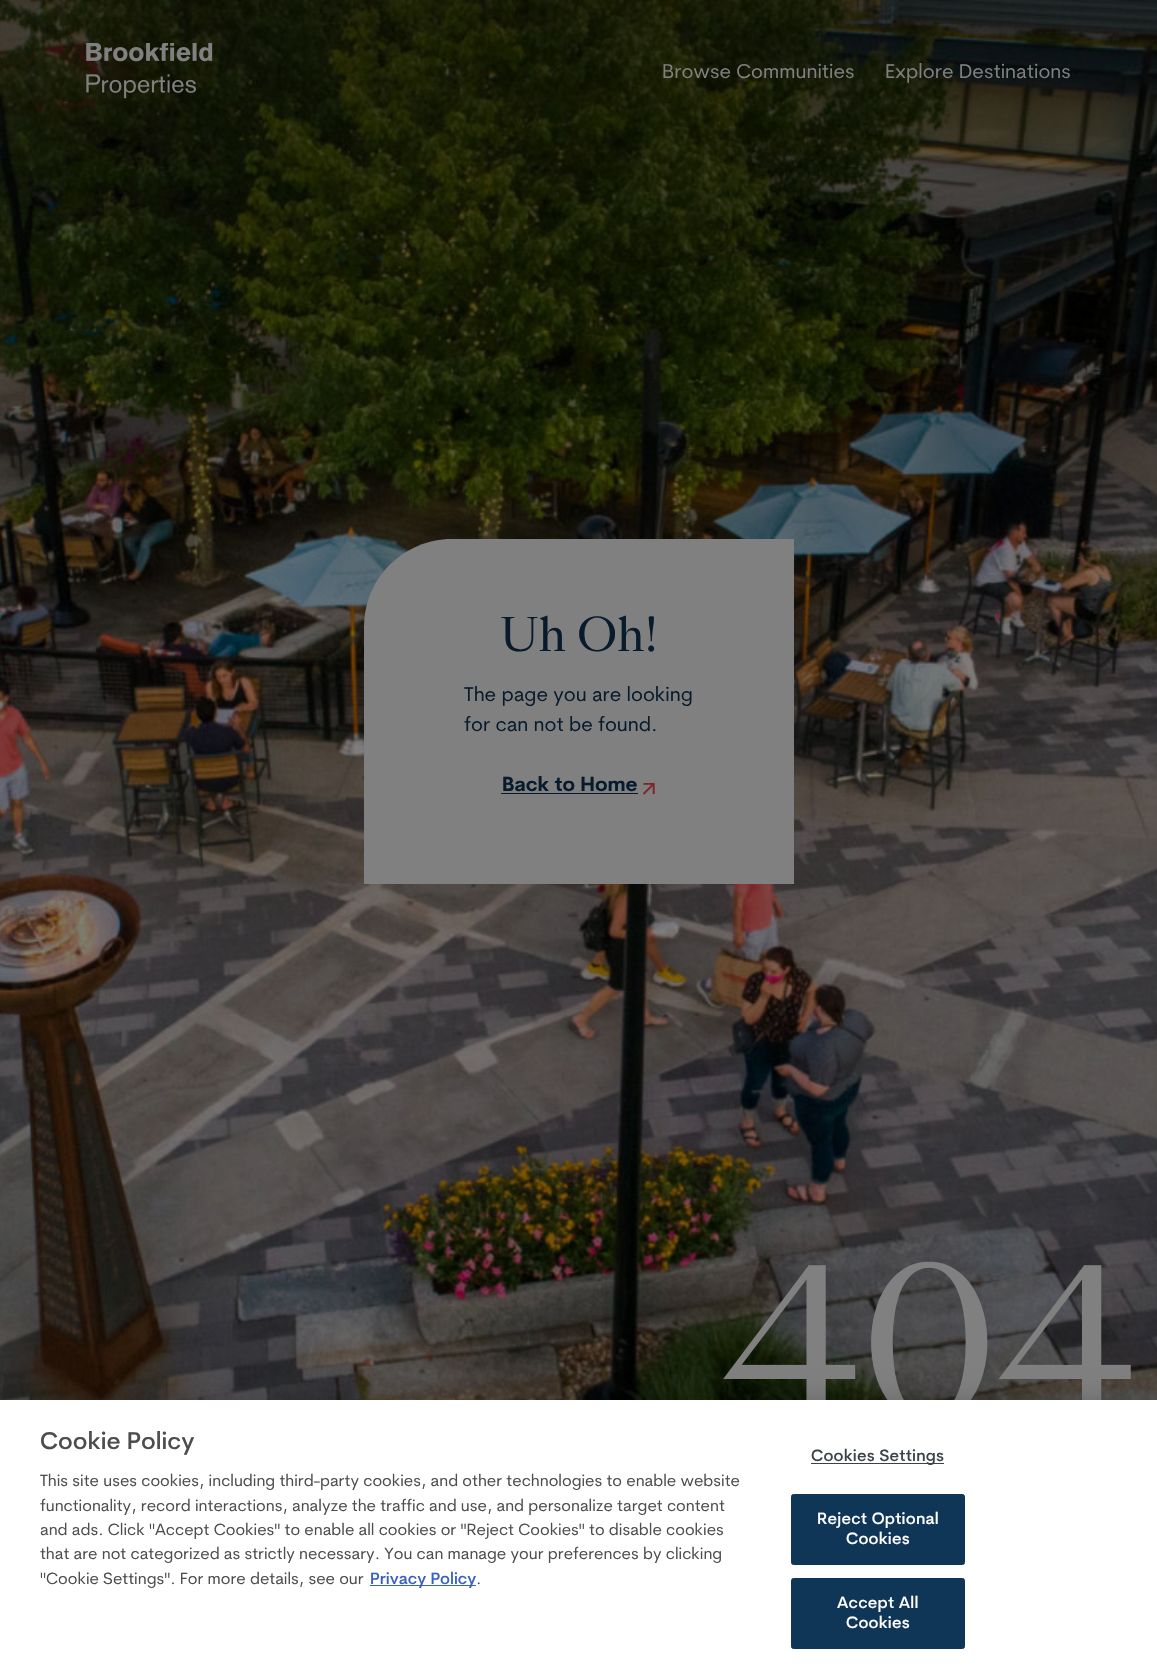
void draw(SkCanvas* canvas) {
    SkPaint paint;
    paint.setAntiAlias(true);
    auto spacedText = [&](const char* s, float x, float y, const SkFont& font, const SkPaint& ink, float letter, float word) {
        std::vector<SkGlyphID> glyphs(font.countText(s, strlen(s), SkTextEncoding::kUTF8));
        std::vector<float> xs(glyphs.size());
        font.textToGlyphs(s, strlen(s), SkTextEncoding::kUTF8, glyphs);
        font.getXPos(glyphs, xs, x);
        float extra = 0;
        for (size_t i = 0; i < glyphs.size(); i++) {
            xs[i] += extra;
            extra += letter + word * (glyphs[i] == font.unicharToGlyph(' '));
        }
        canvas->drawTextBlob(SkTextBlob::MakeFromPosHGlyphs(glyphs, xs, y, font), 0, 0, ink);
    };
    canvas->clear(0xFFFFFFFF);
    canvas->drawImageRect(SkImages::DeferredFromEncodedData(SkData::MakeFromFileName("img2.png")), SkRect::MakeXYWH(0, 0, 1157, 1400), SkSamplingOptions());
    canvas->drawImageRect(SkImages::DeferredFromEncodedData(SkData::MakeFromFileName("img1.png")), SkRect::MakeXYWH(86, 43, 127, 56), SkSamplingOptions());
    SkFont font1(fontMgr->matchFamilyStyle("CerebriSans", SkFontStyle::Normal()), 20);
    font1.setSubpixel(true);
    paint.setColor(0xFF808080);
    canvas->drawString("Browse Communities", 662, 78, font1, paint);
    canvas->drawString("Explore Destinations", 885, 78, font1, paint);
    canvas->drawPath(SkPathBuilder().moveTo(452, 539).lineTo(794, 539).lineTo(794, 884).lineTo(364, 884).lineTo(364, 627).cubicTo(364, 578.5f, 403.5f, 539, 452, 539).close().detach(), paint);
    SkFont font2(fontMgr->matchFamilyStyle("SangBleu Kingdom", SkFontStyle::Normal()), 45);
    font2.setSubpixel(true);
    paint.setColor(0xFF081B2C);
    canvas->drawString("Uh Oh!", 500, 651, font2, paint);
    canvas->drawString("The page you are looking", 464, 701, font1, paint);
    canvas->drawString("for can not be found.", 464, 731, font1, paint);
    SkFont font3(fontMgr->matchFamilyStyle("CerebriSans", SkFontStyle::Bold()), 20);
    font3.setSubpixel(true);
    canvas->drawString("Back to Home", 502, 791, font3, paint);
    canvas->drawRect(SkRect::MakeXYWH(501, 793, 137, 1), paint);
    canvas->drawImageRect(SkImages::DeferredFromEncodedData(SkData::MakeFromFileName("img3.png")), SkRect::MakeXYWH(643, 783, 12, 12), SkSamplingOptions());
    canvas->drawImageRect(SkImages::DeferredFromEncodedData(SkData::MakeFromFileName("img4.png")), SkRect::MakeXYWH(723, 1261, 408, 139), SkSamplingOptions());
    paint.setColor(0x33000000);
    paint.setMaskFilter(SkMaskFilter::MakeBlur(kNormal_SkBlurStyle, 11));
    canvas->drawRect(SkRect::MakeXYWH(0, 1400, 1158, 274), paint);
    paint.setMaskFilter(nullptr);
    paint.setColor(0xFFFFFFFF);
    canvas->drawRect(SkRect::MakeXYWH(0, 1400, 1157, 273), paint);
    SkFont font4(fontMgr->matchFamilyStyle("Cerebri Sans", SkFontStyle(500, SkFontStyle::kNormal_Width, SkFontStyle::kUpright_Slant)), 24);
    font4.setSubpixel(true);
    paint.setColor(0xFF4D4D4D);
    canvas->drawString("Cookie Policy", 40, 1449, font4, paint);
    SkFont font5(fontMgr->matchFamilyStyle("CerebriSans", SkFontStyle::Normal()), 16.25f);
    font5.setSubpixel(true);
    canvas->drawString("This site uses cookies, including third-party cookies, and other technologies to enable website", 40, 1486, font5, paint);
    canvas->drawString("functionality, record interactions, analyze the traffic and use, and personalize target content", 40, 1511, font5, paint);
    canvas->drawString("and ads. Click \"Accept Cookies\" to enable all cookies or \"Reject Cookies\" to disable cookies", 40, 1535, font5, paint);
    canvas->drawString("that are not categorized as strictly necessary. You can manage your preferences by clicking", 40, 1559, font5, paint);
    canvas->drawString("\"Cookie Settings\". For more details, see our", 40, 1584, font5, paint);
    paint.setColor(0xFF3860BE);
    canvas->drawRect(SkRect::MakeXYWH(370, 1585, 106, 1), paint);
    SkFont font6(fontMgr->matchFamilyStyle("Cerebri Sans", SkFontStyle(500, SkFontStyle::kNormal_Width, SkFontStyle::kUpright_Slant)), 16.25f);
    font6.setSubpixel(true);
    canvas->drawString("Privacy Policy", 370, 1584, font6, paint);
    paint.setColor(0xFF4D4D4D);
    canvas->drawString(".", 476, 1584, font5, paint);
    paint.setColor(0xFF3C4347);
    canvas->drawRect(SkRect::MakeXYWH(811, 1463, 133, 1), paint);
    spacedText("Cookies Settings", 811, 1461, font6, paint, 0.2f, 0);
    paint.setColor(0xFF0F3557);
    canvas->drawRoundRect(SkRect::MakeXYWH(791.5f, 1494.5f, 173, 70), 2, 2, paint);
    paint.setStyle(SkPaint::kStroke_Style);
    paint.setStrokeWidth(1);
    canvas->drawRoundRect(SkRect::MakeXYWH(791.5f, 1494.5f, 173, 70), 2, 2, paint);
    paint.setStyle(SkPaint::kFill_Style);
    paint.setColor(0xFFFFFFFF);
    spacedText("Reject Optional", 817, 1524, font6, paint, 0.2f, 0);
    spacedText("Cookies", 846, 1544, font6, paint, 0.2f, 0);
    paint.setColor(0xFF0F3557);
    canvas->drawRoundRect(SkRect::MakeXYWH(791.5f, 1578.5f, 173, 70), 2, 2, paint);
    paint.setStyle(SkPaint::kStroke_Style);
    canvas->drawRoundRect(SkRect::MakeXYWH(791.5f, 1578.5f, 173, 70), 2, 2, paint);
    paint.setStyle(SkPaint::kFill_Style);
    paint.setColor(0xFFFFFFFF);
    spacedText("Accept All", 837, 1608, font6, paint, 0.2f, 0);
    spacedText("Cookies", 846, 1628, font6, paint, 0.2f, 0);
}
